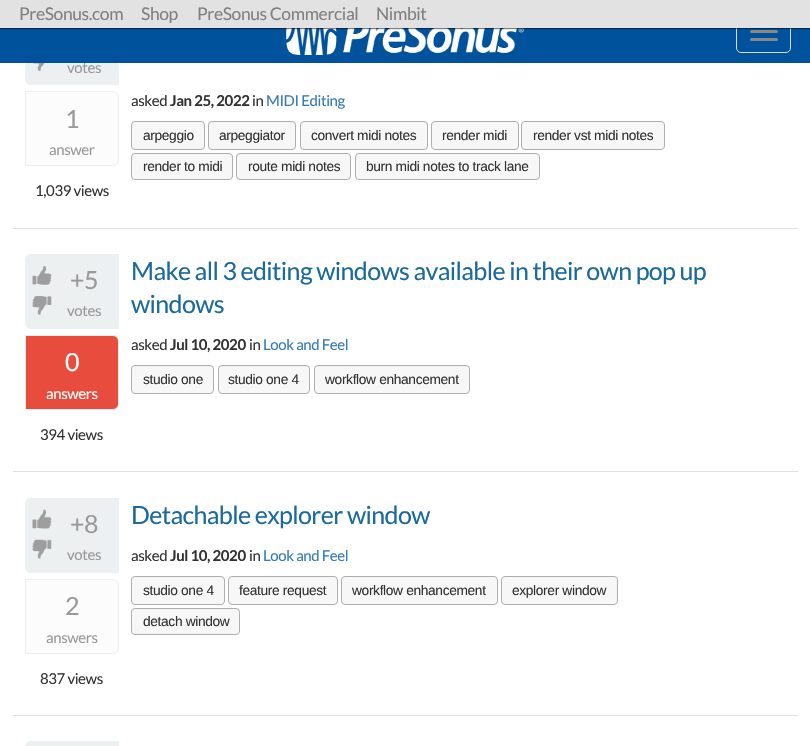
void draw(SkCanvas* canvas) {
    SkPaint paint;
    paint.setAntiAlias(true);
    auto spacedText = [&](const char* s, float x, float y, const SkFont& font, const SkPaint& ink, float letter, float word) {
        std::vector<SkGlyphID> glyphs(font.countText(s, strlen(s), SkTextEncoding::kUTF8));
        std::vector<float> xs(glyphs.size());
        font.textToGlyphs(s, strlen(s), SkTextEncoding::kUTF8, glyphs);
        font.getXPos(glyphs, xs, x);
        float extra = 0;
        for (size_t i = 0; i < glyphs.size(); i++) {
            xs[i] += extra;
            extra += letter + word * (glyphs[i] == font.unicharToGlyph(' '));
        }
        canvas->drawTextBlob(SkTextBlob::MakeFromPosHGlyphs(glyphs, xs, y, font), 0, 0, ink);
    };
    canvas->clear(0xFFFFFFFF);
    paint.setColor(0xFFECF0F1);
    canvas->drawPath(SkPathBuilder().moveTo(31, 10).lineTo(119, 10).lineTo(119, 85).lineTo(31, 85).cubicTo(27.5f, 85, 25, 82.5f, 25, 79).lineTo(25, 16).cubicTo(25, 12.5f, 27.5f, 10, 31, 10).close().detach(), paint);
    SkFont font1(fontMgr->matchFamilyStyle("Lato", SkFontStyle::Normal()), 15);
    font1.setSubpixel(true);
    paint.setColor(0xFF999999);
    spacedText("votes", 67, 73, font1, paint, -0.4f, 0);
    paint.setColor(0xFF00529C);
    canvas->drawRect(SkRect::MakeXYWH(0, 28, 810, 35), paint);
    canvas->drawImageRect(SkImages::DeferredFromEncodedData(SkData::MakeFromFileName("img1.png")), SkRect::MakeXYWH(286, 28, 238, 27), SkSamplingOptions());
    paint.setStyle(SkPaint::kStroke_Style);
    paint.setStrokeWidth(1);
    paint.setColor(0xFFDDDDDD);
    canvas->drawRoundRect(SkRect::MakeXYWH(736.5f, 10.5f, 54, 42), 4.5f, 4.5f, paint);
    paint.setStyle(SkPaint::kFill_Style);
    paint.setColor(0xFF888888);
    canvas->drawRoundRect(SkRect::MakeXYWH(750, 30, 28, 3), 1.5f, 1.5f, paint);
    paint.setColor(0x80000000);
    paint.setMaskFilter(SkMaskFilter::MakeBlur(kNormal_SkBlurStyle, 0.5f));
    canvas->drawRect(SkRect::MakeXYWH(-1, -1, 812, 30), paint);
    paint.setMaskFilter(nullptr);
    paint.setColor(0xFFE2E2E2);
    canvas->drawRect(SkRect::MakeXYWH(0, 0, 810, 28), paint);
    SkFont font2(fontMgr->matchFamilyStyle("Lato", SkFontStyle::Normal()), 17.5f);
    font2.setSubpixel(true);
    paint.setColor(0xFF808080);
    spacedText("PreSonus.com", 19, 20, font2, paint, -0.4f, 0);
    spacedText("Shop", 141, 20, font2, paint, -0.4f, 0);
    spacedText("PreSonus Commercial", 197, 20, font2, paint, -0.4f, 0);
    spacedText("Nimbit", 376, 20, font2, paint, -0.4f, 0);
    paint.setColor(0xFF888888);
    canvas->drawRoundRect(SkRect::MakeXYWH(750, 38, 28, 3), 1.5f, 1.5f, paint);
    paint.setColor(0xFFE0E0E0);
    canvas->drawRect(SkRect::MakeXYWH(13, 228, 785, 1), paint);
    canvas->drawImageRect(SkImages::DeferredFromEncodedData(SkData::MakeFromFileName("img2.png")), SkRect::MakeXYWH(33, 63, 12, 8), SkSamplingOptions());
    paint.setColor(0xFFFCFCFC);
    canvas->drawPath(SkPathBuilder().moveTo(25.5f, 91.5f).lineTo(113, 91.5f).cubicTo(116, 91.5f, 118.5f, 94, 118.5f, 97).lineTo(118.5f, 160).cubicTo(118.5f, 163, 116, 165.5f, 113, 165.5f).lineTo(25.5f, 165.5f).close().detach(), paint);
    paint.setStyle(SkPaint::kStroke_Style);
    paint.setColor(0xFFECF0F1);
    canvas->drawPath(SkPathBuilder().moveTo(25.5f, 91.5f).lineTo(113, 91.5f).cubicTo(116, 91.5f, 118.5f, 94, 118.5f, 97).lineTo(118.5f, 160).cubicTo(118.5f, 163, 116, 165.5f, 113, 165.5f).lineTo(25.5f, 165.5f).close().detach(), paint);
    SkFont font3(fontMgr->matchFamilyStyle("Lato", SkFontStyle::Normal()), 25);
    font3.setSubpixel(true);
    paint.setStyle(SkPaint::kFill_Style);
    paint.setColor(0xFF999999);
    spacedText("1", 65, 128, font3, paint, -0.62f, 0);
    spacedText("answer", 49, 155, font1, paint, -0.4f, 0);
    paint.setColor(0xFF333333);
    spacedText("1,039 views", 35, 196, font1, paint, -0.4f, 0);
    spacedText("asked", 131, 106, font1, paint, -0.4f, 0);
    SkFont font4(fontMgr->matchFamilyStyle("Lato", SkFontStyle::Bold()), 15);
    font4.setSubpixel(true);
    spacedText("Jan 25, 2022", 170, 106, font4, paint, -0.4f, 0);
    spacedText("in", 252, 106, font1, paint, -0.4f, 0);
    paint.setColor(0xFF337AB7);
    spacedText("MIDI Editing", 266, 106, font1, paint, -0.4f, 0);
    paint.setColor(0xFFF7F7F7);
    canvas->drawRoundRect(SkRect::MakeXYWH(131.5f, 121.5f, 73, 28), 3.5f, 3.5f, paint);
    paint.setStyle(SkPaint::kStroke_Style);
    paint.setColor(0xFFAEAEAE);
    canvas->drawRoundRect(SkRect::MakeXYWH(131.5f, 121.5f, 73, 28), 3.5f, 3.5f, paint);
    SkFont font5(fontMgr->matchFamilyStyle("Liberation Sans", SkFontStyle::Normal()), 13.75f);
    font5.setSubpixel(true);
    paint.setStyle(SkPaint::kFill_Style);
    paint.setColor(0xFF333333);
    spacedText("arpeggio", 143, 140, font5, paint, -0.35f, 0);
    paint.setColor(0xFFF7F7F7);
    canvas->drawRoundRect(SkRect::MakeXYWH(208.5f, 121.5f, 87, 28), 3.5f, 3.5f, paint);
    paint.setStyle(SkPaint::kStroke_Style);
    paint.setColor(0xFFAEAEAE);
    canvas->drawRoundRect(SkRect::MakeXYWH(208.5f, 121.5f, 87, 28), 3.5f, 3.5f, paint);
    paint.setStyle(SkPaint::kFill_Style);
    paint.setColor(0xFF333333);
    spacedText("arpeggiator", 219, 140, font5, paint, -0.35f, 0);
    paint.setColor(0xFFF7F7F7);
    canvas->drawRoundRect(SkRect::MakeXYWH(300.5f, 121.5f, 127, 28), 3.5f, 3.5f, paint);
    paint.setStyle(SkPaint::kStroke_Style);
    paint.setColor(0xFFAEAEAE);
    canvas->drawRoundRect(SkRect::MakeXYWH(300.5f, 121.5f, 127, 28), 3.5f, 3.5f, paint);
    paint.setStyle(SkPaint::kFill_Style);
    paint.setColor(0xFF333333);
    spacedText("convert midi notes", 311, 140, font5, paint, -0.35f, 0);
    paint.setColor(0xFFF7F7F7);
    canvas->drawRoundRect(SkRect::MakeXYWH(431.5f, 121.5f, 87, 28), 3.5f, 3.5f, paint);
    paint.setStyle(SkPaint::kStroke_Style);
    paint.setColor(0xFFAEAEAE);
    canvas->drawRoundRect(SkRect::MakeXYWH(431.5f, 121.5f, 87, 28), 3.5f, 3.5f, paint);
    paint.setStyle(SkPaint::kFill_Style);
    paint.setColor(0xFF333333);
    spacedText("render midi", 442, 140, font5, paint, -0.35f, 0);
    paint.setColor(0xFFF7F7F7);
    canvas->drawRoundRect(SkRect::MakeXYWH(521.5f, 121.5f, 143, 28), 3.5f, 3.5f, paint);
    paint.setStyle(SkPaint::kStroke_Style);
    paint.setColor(0xFFAEAEAE);
    canvas->drawRoundRect(SkRect::MakeXYWH(521.5f, 121.5f, 143, 28), 3.5f, 3.5f, paint);
    paint.setStyle(SkPaint::kFill_Style);
    paint.setColor(0xFF333333);
    spacedText("render vst midi notes", 533, 140, font5, paint, -0.35f, 0);
    paint.setColor(0xFFF7F7F7);
    canvas->drawRoundRect(SkRect::MakeXYWH(131.5f, 153.5f, 101, 26), 3.5f, 3.5f, paint);
    paint.setStyle(SkPaint::kStroke_Style);
    paint.setColor(0xFFAEAEAE);
    canvas->drawRoundRect(SkRect::MakeXYWH(131.5f, 153.5f, 101, 26), 3.5f, 3.5f, paint);
    paint.setStyle(SkPaint::kFill_Style);
    paint.setColor(0xFF333333);
    spacedText("render to midi", 143, 171, font5, paint, -0.35f, 0);
    paint.setColor(0xFFF7F7F7);
    canvas->drawRoundRect(SkRect::MakeXYWH(236.5f, 153.5f, 114, 26), 3.5f, 3.5f, paint);
    paint.setStyle(SkPaint::kStroke_Style);
    paint.setColor(0xFFAEAEAE);
    canvas->drawRoundRect(SkRect::MakeXYWH(236.5f, 153.5f, 114, 26), 3.5f, 3.5f, paint);
    paint.setStyle(SkPaint::kFill_Style);
    paint.setColor(0xFF333333);
    spacedText("route midi notes", 248, 171, font5, paint, -0.35f, 0);
    paint.setColor(0xFFF7F7F7);
    canvas->drawRoundRect(SkRect::MakeXYWH(355.5f, 153.5f, 184, 26), 3.5f, 3.5f, paint);
    paint.setStyle(SkPaint::kStroke_Style);
    paint.setColor(0xFFAEAEAE);
    canvas->drawRoundRect(SkRect::MakeXYWH(355.5f, 153.5f, 184, 26), 3.5f, 3.5f, paint);
    paint.setStyle(SkPaint::kFill_Style);
    paint.setColor(0xFF333333);
    spacedText("burn midi notes to track lane", 366, 171, font5, paint, -0.35f, 0);
    paint.setColor(0xFFE0E0E0);
    canvas->drawRect(SkRect::MakeXYWH(13, 471, 785, 1), paint);
    paint.setColor(0xFFECF0F1);
    canvas->drawPath(SkPathBuilder().moveTo(31, 254).lineTo(119, 254).lineTo(119, 329).lineTo(31, 329).cubicTo(27.5f, 329, 25, 326.5f, 25, 323).lineTo(25, 260).cubicTo(25, 256.5f, 27.5f, 254, 31, 254).close().detach(), paint);
    canvas->drawImageRect(SkImages::DeferredFromEncodedData(SkData::MakeFromFileName("img3.png")), SkRect::MakeXYWH(32, 266, 20, 19), SkSamplingOptions());
    canvas->drawImageRect(SkImages::DeferredFromEncodedData(SkData::MakeFromFileName("img4.png")), SkRect::MakeXYWH(32, 296, 20, 19), SkSamplingOptions());
    paint.setColor(0xFF999999);
    spacedText("+5", 70, 289, font3, paint, -0.62f, 0);
    spacedText("votes", 67, 316, font1, paint, -0.4f, 0);
    paint.setColor(0xFFE74C3C);
    canvas->drawPath(SkPathBuilder().moveTo(25.5f, 335.5f).lineTo(113, 335.5f).cubicTo(116, 335.5f, 118.5f, 338, 118.5f, 341).lineTo(118.5f, 404).cubicTo(118.5f, 407, 116, 409.5f, 113, 409.5f).lineTo(25.5f, 409.5f).close().detach(), paint);
    paint.setStyle(SkPaint::kStroke_Style);
    paint.setColor(0xFFECF0F1);
    canvas->drawPath(SkPathBuilder().moveTo(25.5f, 335.5f).lineTo(113, 335.5f).cubicTo(116, 335.5f, 118.5f, 338, 118.5f, 341).lineTo(118.5f, 404).cubicTo(118.5f, 407, 116, 409.5f, 113, 409.5f).lineTo(25.5f, 409.5f).close().detach(), paint);
    paint.setStyle(SkPaint::kFill_Style);
    paint.setColor(0xFFFFFFFF);
    spacedText("0", 65, 371, font3, paint, -0.62f, 0);
    spacedText("answers", 46, 399, font1, paint, -0.4f, 0);
    paint.setColor(0xFF333333);
    spacedText("394 views", 40, 440, font1, paint, -0.4f, 0);
    paint.setColor(0xFF1A6A9B);
    spacedText("Make all 3 editing windows available in their own pop up", 131, 280, font3, paint, -0.62f, 0);
    spacedText("windows", 131, 313, font3, paint, -0.62f, 0);
    paint.setColor(0xFF333333);
    spacedText("asked", 131, 350, font1, paint, -0.4f, 0);
    spacedText("Jul 10, 2020", 170, 350, font4, paint, -0.4f, 0);
    spacedText("in", 249, 350, font1, paint, -0.4f, 0);
    paint.setColor(0xFF337AB7);
    spacedText("Look and Feel", 263, 350, font1, paint, -0.4f, 0);
    paint.setColor(0xFFF7F7F7);
    canvas->drawRoundRect(SkRect::MakeXYWH(131.5f, 365.5f, 82, 28), 3.5f, 3.5f, paint);
    paint.setStyle(SkPaint::kStroke_Style);
    paint.setColor(0xFFAEAEAE);
    canvas->drawRoundRect(SkRect::MakeXYWH(131.5f, 365.5f, 82, 28), 3.5f, 3.5f, paint);
    paint.setStyle(SkPaint::kFill_Style);
    paint.setColor(0xFF333333);
    spacedText("studio one", 143, 384, font5, paint, -0.35f, 0);
    paint.setColor(0xFFF7F7F7);
    canvas->drawRoundRect(SkRect::MakeXYWH(218.5f, 365.5f, 91, 28), 3.5f, 3.5f, paint);
    paint.setStyle(SkPaint::kStroke_Style);
    paint.setColor(0xFFAEAEAE);
    canvas->drawRoundRect(SkRect::MakeXYWH(218.5f, 365.5f, 91, 28), 3.5f, 3.5f, paint);
    paint.setStyle(SkPaint::kFill_Style);
    paint.setColor(0xFF333333);
    spacedText("studio one 4", 228, 384, font5, paint, -0.35f, 0);
    paint.setColor(0xFFF7F7F7);
    canvas->drawRoundRect(SkRect::MakeXYWH(314.5f, 365.5f, 155, 28), 3.5f, 3.5f, paint);
    paint.setStyle(SkPaint::kStroke_Style);
    paint.setColor(0xFFAEAEAE);
    canvas->drawRoundRect(SkRect::MakeXYWH(314.5f, 365.5f, 155, 28), 3.5f, 3.5f, paint);
    paint.setStyle(SkPaint::kFill_Style);
    paint.setColor(0xFF333333);
    spacedText("workflow enhancement", 325, 384, font5, paint, -0.35f, 0);
    paint.setColor(0xFFE0E0E0);
    canvas->drawRect(SkRect::MakeXYWH(13, 715, 785, 1), paint);
    paint.setColor(0xFFECF0F1);
    canvas->drawPath(SkPathBuilder().moveTo(31, 498).lineTo(119, 498).lineTo(119, 573).lineTo(31, 573).cubicTo(27.5f, 573, 25, 570.5f, 25, 567).lineTo(25, 504).cubicTo(25, 500.5f, 27.5f, 498, 31, 498).close().detach(), paint);
    canvas->drawImageRect(SkImages::DeferredFromEncodedData(SkData::MakeFromFileName("img5.png")), SkRect::MakeXYWH(32, 509, 20, 20), SkSamplingOptions());
    canvas->drawImageRect(SkImages::DeferredFromEncodedData(SkData::MakeFromFileName("img6.png")), SkRect::MakeXYWH(32, 539, 20, 20), SkSamplingOptions());
    paint.setColor(0xFF999999);
    spacedText("+8", 70, 533, font3, paint, -0.62f, 0);
    spacedText("votes", 67, 560, font1, paint, -0.4f, 0);
    paint.setColor(0xFFFCFCFC);
    canvas->drawPath(SkPathBuilder().moveTo(25.5f, 579.5f).lineTo(113, 579.5f).cubicTo(116, 579.5f, 118.5f, 582, 118.5f, 585).lineTo(118.5f, 648).cubicTo(118.5f, 651, 116, 653.5f, 113, 653.5f).lineTo(25.5f, 653.5f).close().detach(), paint);
    paint.setStyle(SkPaint::kStroke_Style);
    paint.setColor(0xFFECF0F1);
    canvas->drawPath(SkPathBuilder().moveTo(25.5f, 579.5f).lineTo(113, 579.5f).cubicTo(116, 579.5f, 118.5f, 582, 118.5f, 585).lineTo(118.5f, 648).cubicTo(118.5f, 651, 116, 653.5f, 113, 653.5f).lineTo(25.5f, 653.5f).close().detach(), paint);
    paint.setStyle(SkPaint::kFill_Style);
    paint.setColor(0xFF999999);
    spacedText("2", 65, 615, font3, paint, -0.62f, 0);
    spacedText("answers", 46, 643, font1, paint, -0.4f, 0);
    paint.setColor(0xFF333333);
    spacedText("837 views", 40, 684, font1, paint, -0.4f, 0);
    paint.setColor(0xFF1A6A9B);
    spacedText("Detachable explorer window", 131, 524, font3, paint, -0.62f, 0);
    paint.setColor(0xFF333333);
    spacedText("asked", 131, 561, font1, paint, -0.4f, 0);
    spacedText("Jul 10, 2020", 170, 561, font4, paint, -0.4f, 0);
    spacedText("in", 249, 561, font1, paint, -0.4f, 0);
    paint.setColor(0xFF337AB7);
    spacedText("Look and Feel", 263, 561, font1, paint, -0.4f, 0);
    paint.setColor(0xFFF7F7F7);
    canvas->drawRoundRect(SkRect::MakeXYWH(131.5f, 576.5f, 93, 28), 3.5f, 3.5f, paint);
    paint.setStyle(SkPaint::kStroke_Style);
    paint.setColor(0xFFAEAEAE);
    canvas->drawRoundRect(SkRect::MakeXYWH(131.5f, 576.5f, 93, 28), 3.5f, 3.5f, paint);
    paint.setStyle(SkPaint::kFill_Style);
    paint.setColor(0xFF333333);
    spacedText("studio one 4", 143, 595, font5, paint, -0.35f, 0);
    paint.setColor(0xFFF7F7F7);
    canvas->drawRoundRect(SkRect::MakeXYWH(228.5f, 576.5f, 109, 28), 3.5f, 3.5f, paint);
    paint.setStyle(SkPaint::kStroke_Style);
    paint.setColor(0xFFAEAEAE);
    canvas->drawRoundRect(SkRect::MakeXYWH(228.5f, 576.5f, 109, 28), 3.5f, 3.5f, paint);
    paint.setStyle(SkPaint::kFill_Style);
    paint.setColor(0xFF333333);
    spacedText("feature request", 239, 595, font5, paint, -0.35f, 0);
    paint.setColor(0xFFF7F7F7);
    canvas->drawRoundRect(SkRect::MakeXYWH(341.5f, 576.5f, 156, 28), 3.5f, 3.5f, paint);
    paint.setStyle(SkPaint::kStroke_Style);
    paint.setColor(0xFFAEAEAE);
    canvas->drawRoundRect(SkRect::MakeXYWH(341.5f, 576.5f, 156, 28), 3.5f, 3.5f, paint);
    paint.setStyle(SkPaint::kFill_Style);
    paint.setColor(0xFF333333);
    spacedText("workflow enhancement", 352, 595, font5, paint, -0.35f, 0);
    paint.setColor(0xFFF7F7F7);
    canvas->drawRoundRect(SkRect::MakeXYWH(501.5f, 576.5f, 116, 28), 3.5f, 3.5f, paint);
    paint.setStyle(SkPaint::kStroke_Style);
    paint.setColor(0xFFAEAEAE);
    canvas->drawRoundRect(SkRect::MakeXYWH(501.5f, 576.5f, 116, 28), 3.5f, 3.5f, paint);
    paint.setStyle(SkPaint::kFill_Style);
    paint.setColor(0xFF333333);
    spacedText("explorer window", 512, 595, font5, paint, -0.35f, 0);
    paint.setColor(0xFFF7F7F7);
    canvas->drawRoundRect(SkRect::MakeXYWH(131.5f, 608.5f, 108, 26), 3.5f, 3.5f, paint);
    paint.setStyle(SkPaint::kStroke_Style);
    paint.setColor(0xFFAEAEAE);
    canvas->drawRoundRect(SkRect::MakeXYWH(131.5f, 608.5f, 108, 26), 3.5f, 3.5f, paint);
    paint.setStyle(SkPaint::kFill_Style);
    paint.setColor(0xFF333333);
    spacedText("detach window", 143, 626, font5, paint, -0.35f, 0);
    paint.setColor(0xFFECF0F1);
    canvas->drawPath(SkPathBuilder().moveTo(31, 741).lineTo(119, 741).lineTo(119, 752).lineTo(31, 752).cubicTo(27.5f, 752, 25, 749.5f, 25, 746).lineTo(25, 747).cubicTo(25, 743.5f, 27.5f, 741, 31, 741).close().detach(), paint);
}
